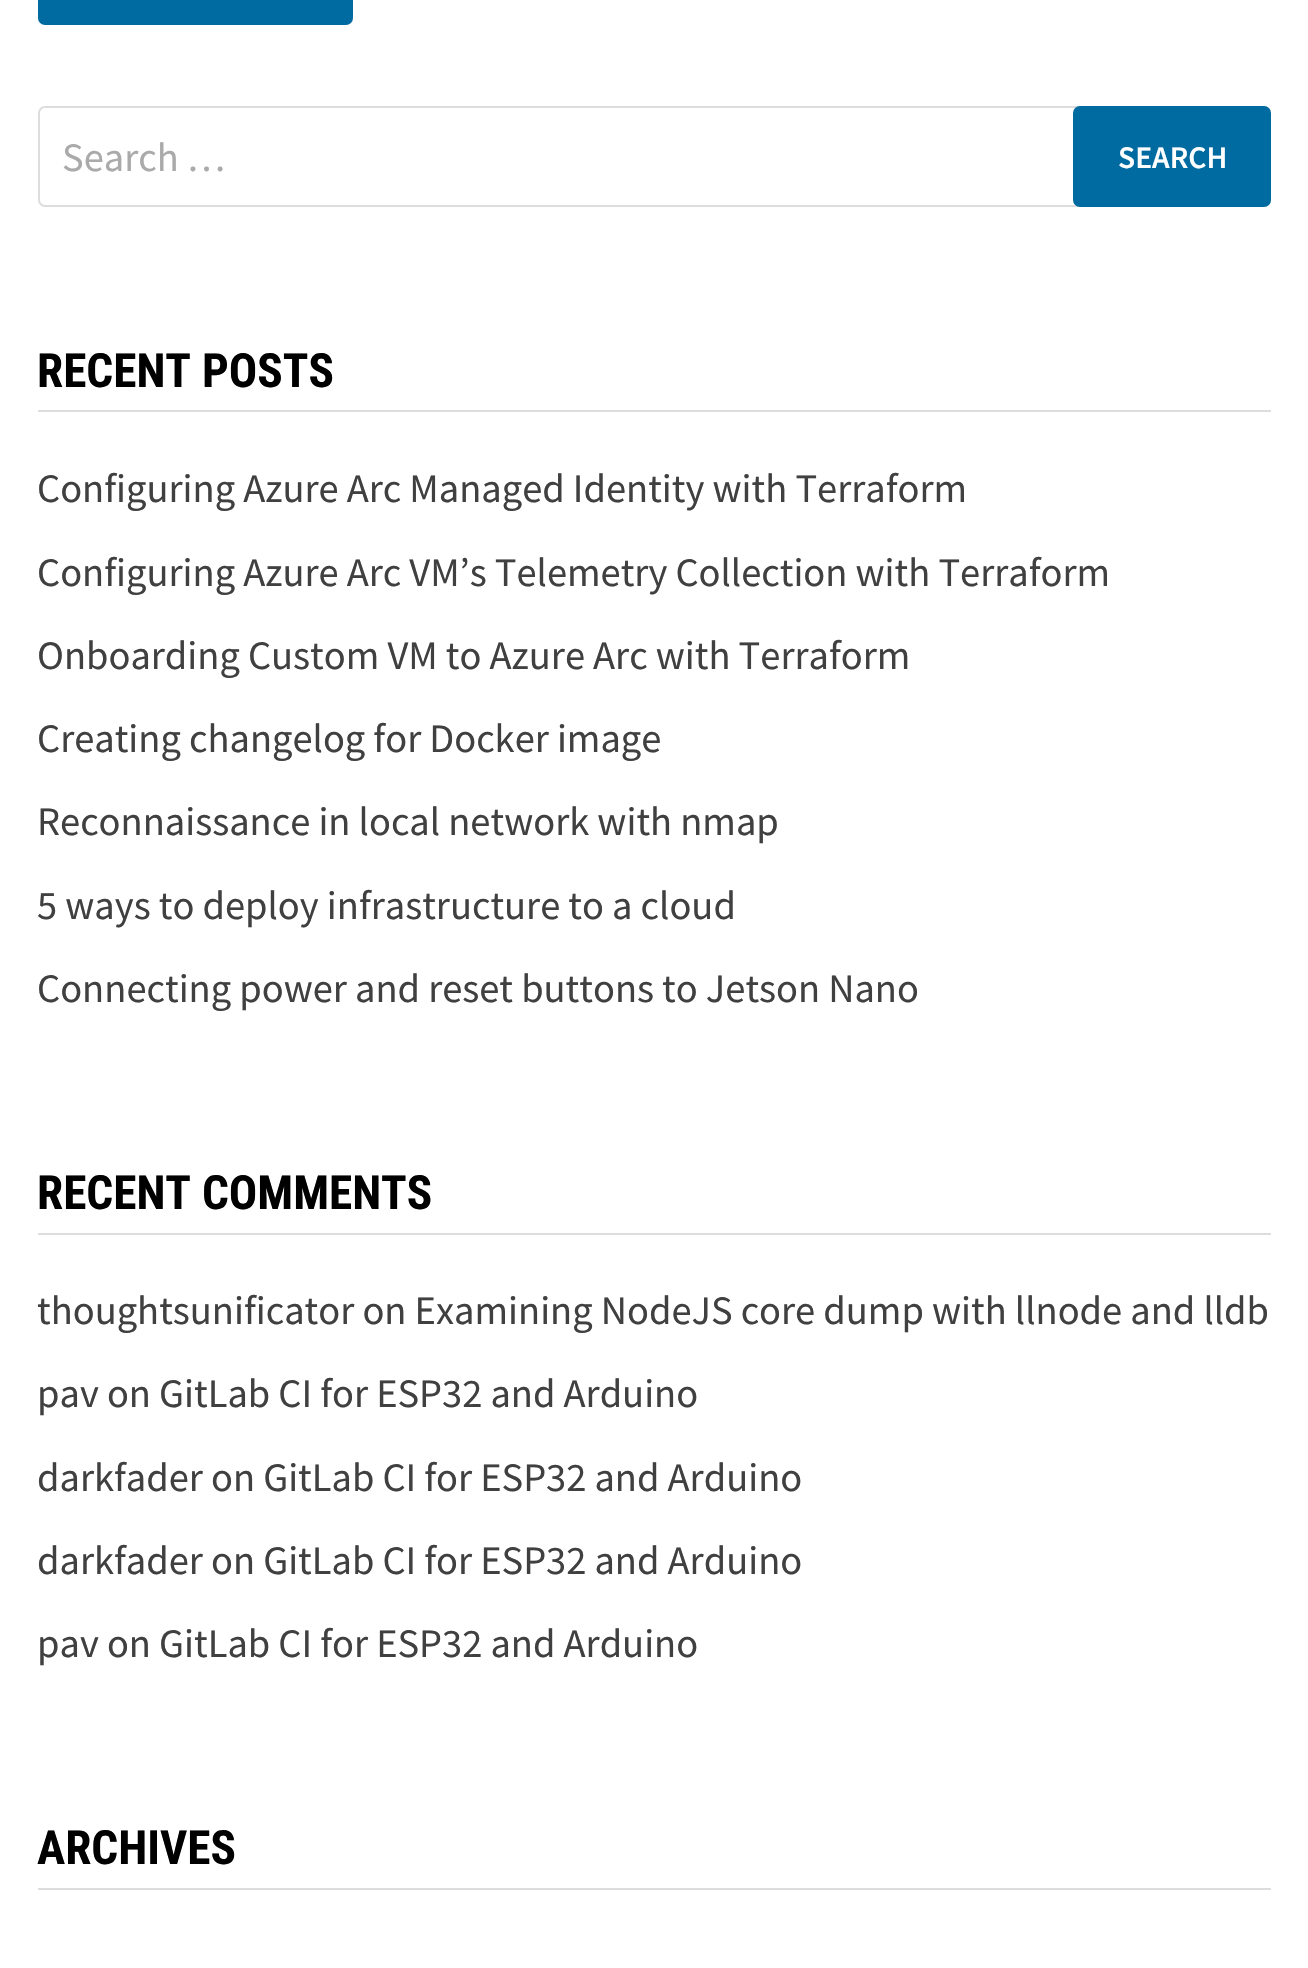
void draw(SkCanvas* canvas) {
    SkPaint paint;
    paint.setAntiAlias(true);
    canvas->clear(0xFFFFFFFF);
    paint.setColor(0xFF006BA0);
    canvas->drawRoundRect(SkRect::MakeXYWH(38, -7, 315, 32), 7, 7, paint);
    paint.setStyle(SkPaint::kStroke_Style);
    paint.setStrokeWidth(2);
    paint.setColor(0xFFDDDDDD);
    canvas->drawRoundRect(SkRect::MakeXYWH(39, 107, 1231, 99), 6, 6, paint);
    SkFont font1(fontMgr->matchFamilyStyle("Source Sans Pro", SkFontStyle::Normal()), 40.5f);
    font1.setSubpixel(true);
    paint.setStyle(SkPaint::kFill_Style);
    paint.setColor(0xFFAAAAAA);
    canvas->drawString("Search …", 62, 171, font1, paint);
    paint.setColor(0xFF006BA0);
    canvas->drawRoundRect(SkRect::MakeXYWH(1073, 106, 198, 101), 7, 7, paint);
    SkFont font2(fontMgr->matchFamilyStyle("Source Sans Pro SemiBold", SkFontStyle(600, SkFontStyle::kNormal_Width, SkFontStyle::kUpright_Slant)), 31.5f);
    font2.setSubpixel(true);
    paint.setColor(0xFFFFFFFF);
    canvas->drawString("SEARCH", 1118, 168, font2, paint);
    paint.setColor(0xFFDDDDDD);
    canvas->drawRect(SkRect::MakeXYWH(38, 410, 1233, 2), paint);
    SkFont font3(fontMgr->matchFamilyStyle("Roboto Condensed", SkFontStyle::Bold()), 47.25f);
    font3.setSubpixel(true);
    paint.setColor(0xFF000000);
    canvas->drawString("RECENT POSTS", 37, 387, font3, paint);
    paint.setColor(0xFF404040);
    canvas->drawString("Configuring Azure Arc Managed Identity with Terraform", 37, 502, font1, paint);
    canvas->drawString("Configuring Azure Arc VM’s Telemetry Collection with Terraform", 37, 586, font1, paint);
    canvas->drawString("Onboarding Custom VM to Azure Arc with Terraform", 37, 669, font1, paint);
    canvas->drawString("Creating changelog for Docker image", 37, 752, font1, paint);
    canvas->drawString("Reconnaissance in local network with nmap", 37, 835, font1, paint);
    canvas->drawString("5 ways to deploy infrastructure to a cloud", 37, 919, font1, paint);
    canvas->drawString("Connecting power and reset buttons to Jetson Nano", 37, 1002, font1, paint);
    paint.setColor(0xFFDDDDDD);
    canvas->drawRect(SkRect::MakeXYWH(38, 1233, 1233, 2), paint);
    paint.setColor(0xFF000000);
    canvas->drawString("RECENT COMMENTS", 37, 1209, font3, paint);
    paint.setColor(0xFF404040);
    canvas->drawString("thoughtsunificator on Examining NodeJS core dump with llnode and lldb", 37, 1324, font1, paint);
    canvas->drawString("pav on GitLab CI for ESP32 and Arduino", 37, 1407, font1, paint);
    canvas->drawString("darkfader on GitLab CI for ESP32 and Arduino", 37, 1491, font1, paint);
    canvas->drawString("darkfader on GitLab CI for ESP32 and Arduino", 37, 1574, font1, paint);
    canvas->drawString("pav on GitLab CI for ESP32 and Arduino", 37, 1657, font1, paint);
    paint.setColor(0xFFDDDDDD);
    canvas->drawRect(SkRect::MakeXYWH(38, 1888, 1233, 2), paint);
    paint.setColor(0xFF000000);
    canvas->drawString("ARCHIVES", 37, 1864, font3, paint);
}
